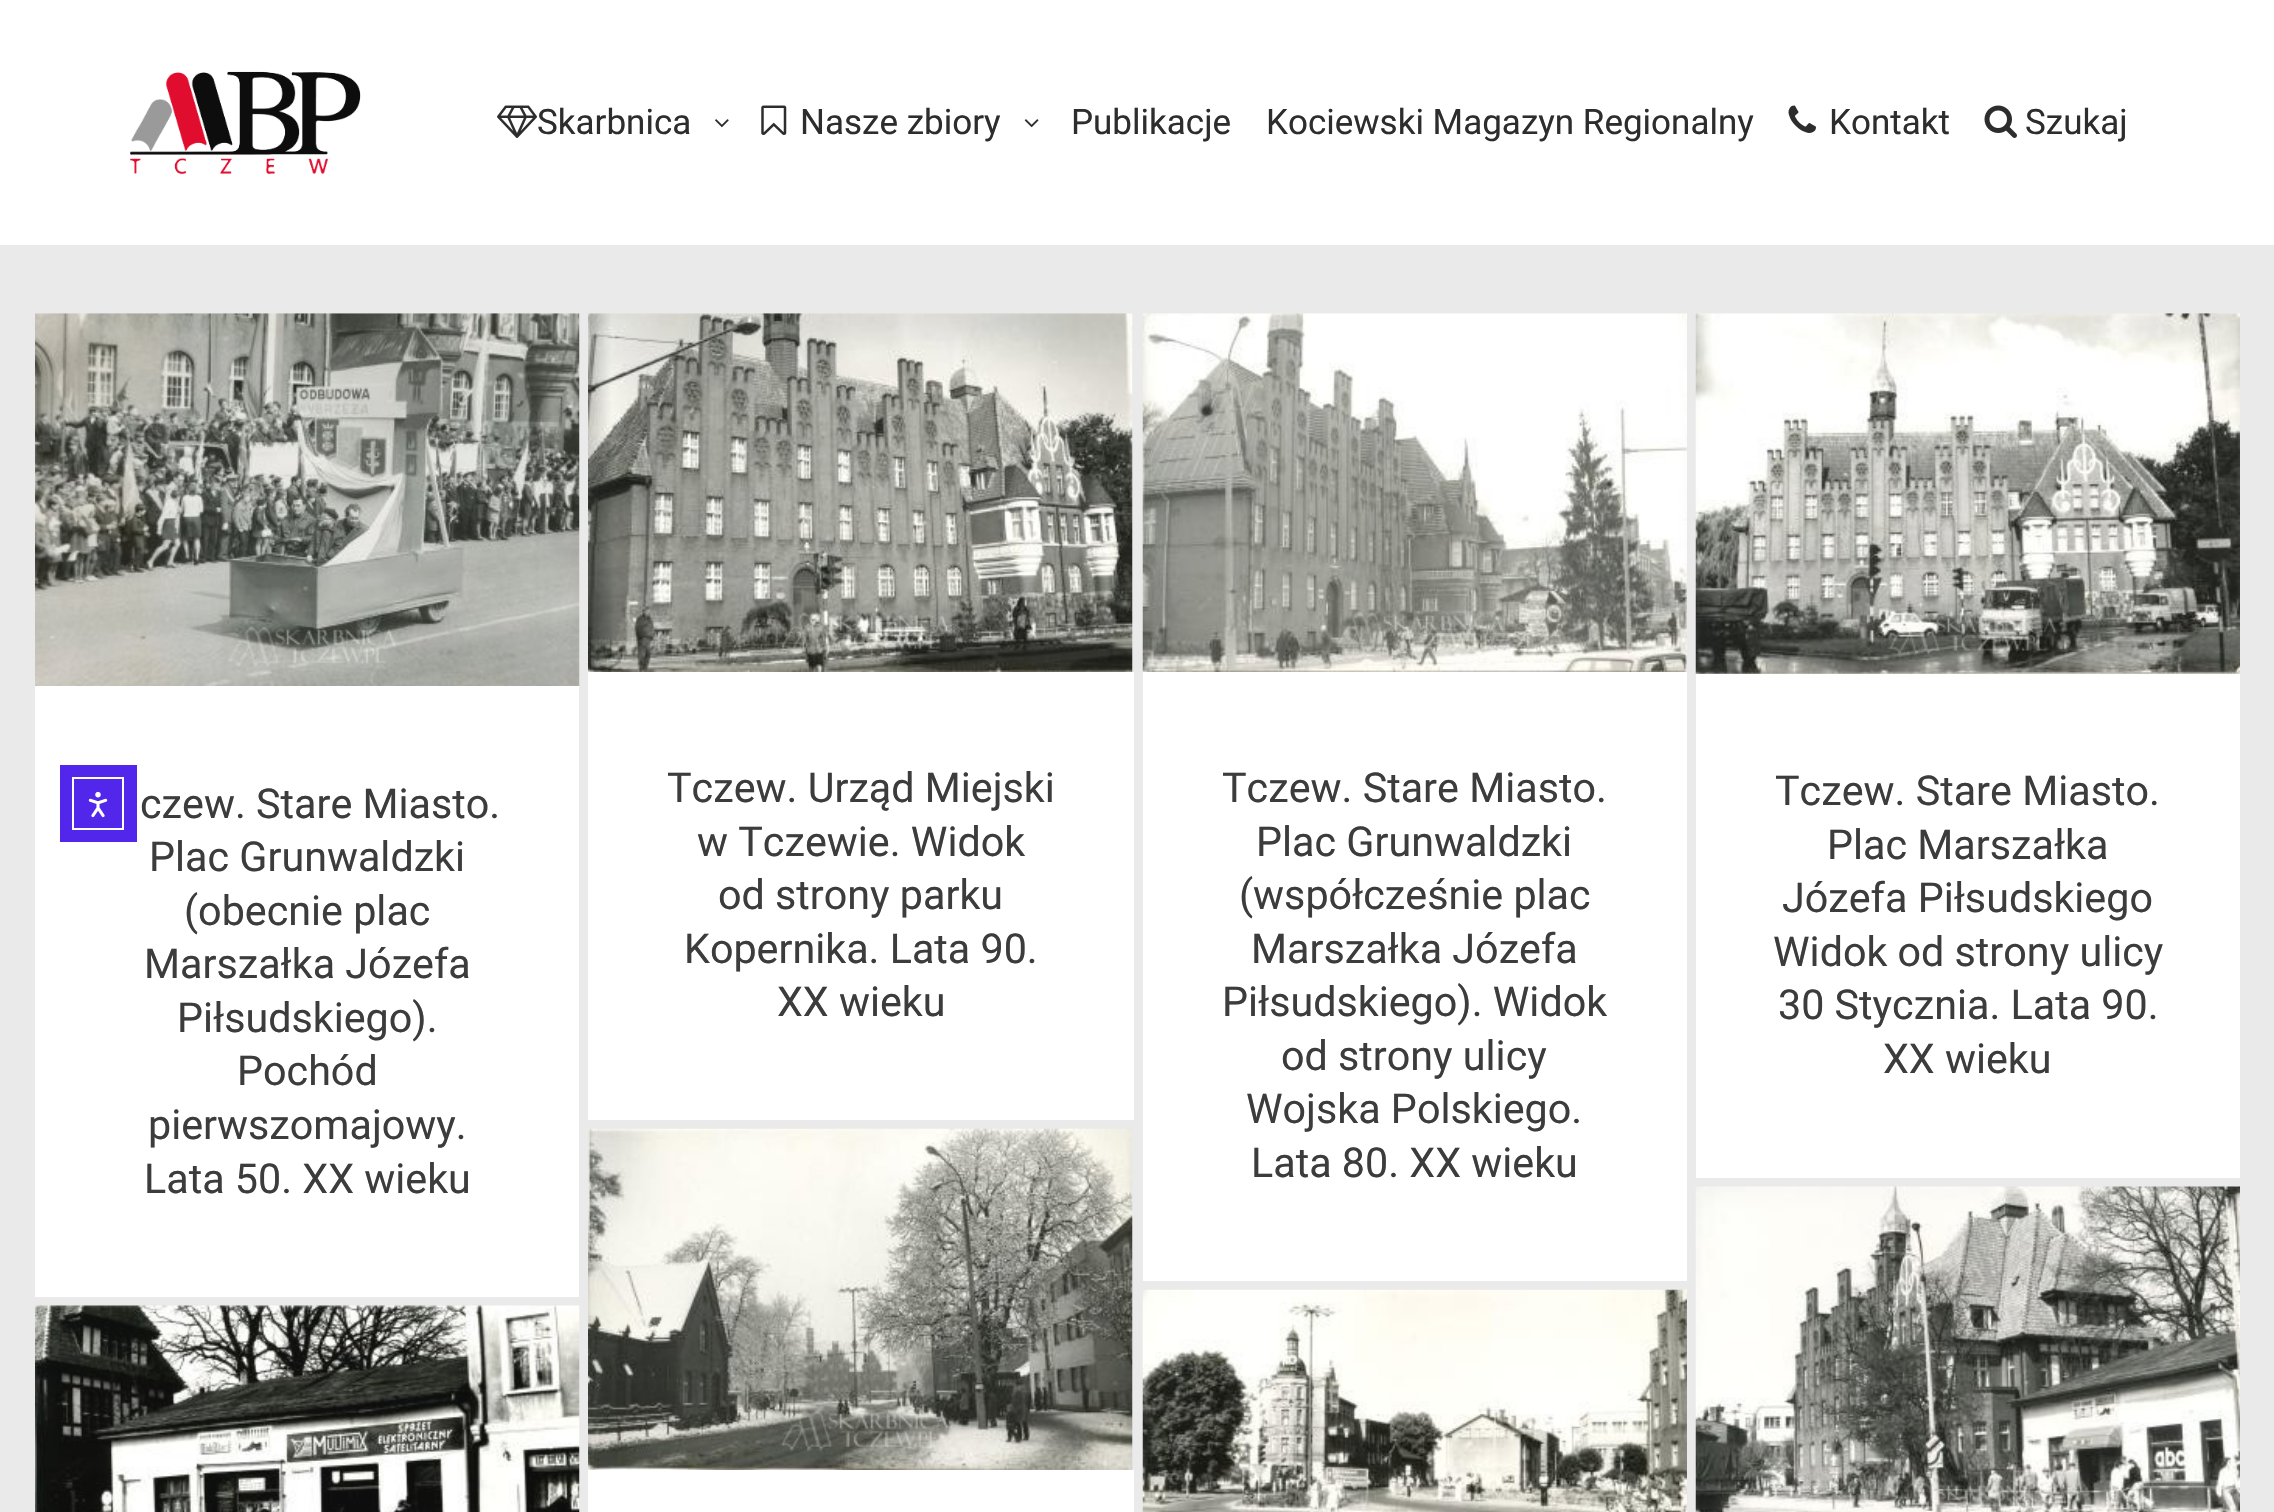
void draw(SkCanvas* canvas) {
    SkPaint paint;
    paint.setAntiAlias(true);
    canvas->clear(0xFFEAEAEA);
    paint.setColor(0xFFFFFFFF);
    canvas->drawRect(SkRect::MakeXYWH(35, 686, 544, 611), paint);
    paint.setColor(0xFF5226EB);
    canvas->drawRect(SkRect::MakeXYWH(60, 765, 77, 77), paint);
    paint.setStyle(SkPaint::kStroke_Style);
    paint.setStrokeWidth(2);
    paint.setColor(0xFFFFFFFF);
    canvas->drawRect(SkRect::MakeXYWH(73, 778, 50, 51), paint);
    canvas->drawImageRect(SkImages::DeferredFromEncodedData(SkData::MakeFromFileName("img1.png")), SkRect::MakeXYWH(88, 791, 20, 27), SkSamplingOptions());
    paint.setStyle(SkPaint::kFill_Style);
    canvas->drawRect(SkRect::MakeXYWH(0, 0, 2274, 245), paint);
    canvas->drawImageRect(SkImages::DeferredFromEncodedData(SkData::MakeFromFileName("img2.png")), SkRect::MakeXYWH(130, 71, 231, 104), SkSamplingOptions());
    canvas->drawImageRect(SkImages::DeferredFromEncodedData(SkData::MakeFromFileName("img3.png")), SkRect::MakeXYWH(497, 105, 40, 33), SkSamplingOptions());
    SkFont font1(fontMgr->matchFamilyStyle("Roboto", SkFontStyle::Normal()), 35);
    font1.setSubpixel(true);
    paint.setColor(0xFF2D2D2D);
    canvas->drawString("Skarbnica", 537, 134, font1, paint);
    canvas->drawImageRect(SkImages::DeferredFromEncodedData(SkData::MakeFromFileName("img4.png")), SkRect::MakeXYWH(715, 119, 14, 9), SkSamplingOptions());
    canvas->drawImageRect(SkImages::DeferredFromEncodedData(SkData::MakeFromFileName("img5.png")), SkRect::MakeXYWH(761, 105, 26, 30), SkSamplingOptions());
    canvas->drawString("Nasze zbiory", 800, 134, font1, paint);
    canvas->drawImageRect(SkImages::DeferredFromEncodedData(SkData::MakeFromFileName("img6.png")), SkRect::MakeXYWH(1024, 119, 15, 9), SkSamplingOptions());
    canvas->drawString("Publikacje", 1071, 134, font1, paint);
    canvas->drawString("Kociewski Magazyn Regionalny", 1266, 134, font1, paint);
    canvas->drawImageRect(SkImages::DeferredFromEncodedData(SkData::MakeFromFileName("img7.png")), SkRect::MakeXYWH(1788, 105, 28, 28), SkSamplingOptions());
    canvas->drawString("Kontakt", 1829, 134, font1, paint);
    canvas->drawImageRect(SkImages::DeferredFromEncodedData(SkData::MakeFromFileName("img8.png")), SkRect::MakeXYWH(1984, 105, 33, 33), SkSamplingOptions());
    canvas->drawString("Szukaj", 2025, 134, font1, paint);
    canvas->drawImageRect(SkImages::DeferredFromEncodedData(SkData::MakeFromFileName("img9.png")), SkRect::MakeXYWH(35, 313, 545, 373), SkSamplingOptions());
    SkFont font2(fontMgr->matchFamilyStyle("Roboto", SkFontStyle::Normal()), 41.25f);
    font2.setSubpixel(true);
    paint.setColor(0xFF3C3C3C);
    canvas->drawString("czew. Stare Miasto.", 140, 818, font2, paint);
    canvas->drawString("Plac Grunwaldzki", 149, 871, font2, paint);
    canvas->drawString("(obecnie plac", 184, 925, font2, paint);
    canvas->drawString("Marszałka Józefa", 144, 978, font2, paint);
    canvas->drawString("Piłsudskiego).", 177, 1032, font2, paint);
    canvas->drawString("Pochód", 237, 1085, font2, paint);
    canvas->drawString("pierwszomajowy.", 148, 1139, font2, paint);
    canvas->drawString("Lata 50. XX wieku", 144, 1193, font2, paint);
    canvas->drawImageRect(SkImages::DeferredFromEncodedData(SkData::MakeFromFileName("img10.png")), SkRect::MakeXYWH(588, 313, 545, 359), SkSamplingOptions());
    paint.setColor(0xFFFFFFFF);
    canvas->drawRect(SkRect::MakeXYWH(588, 672, 546, 448), paint);
    paint.setColor(0xFF3C3C3C);
    canvas->drawString("Tczew. Urząd Miejski", 667, 802, font2, paint);
    canvas->drawString("w Tczewie. Widok", 697, 856, font2, paint);
    canvas->drawString("od strony parku", 718, 909, font2, paint);
    canvas->drawString("Kopernika. Lata 90.", 684, 963, font2, paint);
    canvas->drawString("XX wieku", 777, 1016, font2, paint);
    canvas->drawImageRect(SkImages::DeferredFromEncodedData(SkData::MakeFromFileName("img11.png")), SkRect::MakeXYWH(1142, 313, 545, 359), SkSamplingOptions());
    paint.setColor(0xFFFFFFFF);
    canvas->drawRect(SkRect::MakeXYWH(1143, 672, 544, 609), paint);
    paint.setColor(0xFF3C3C3C);
    canvas->drawString("Tczew. Stare Miasto.", 1222, 802, font2, paint);
    canvas->drawString("Plac Grunwaldzki", 1256, 856, font2, paint);
    canvas->drawString("(współcześnie plac", 1239, 909, font2, paint);
    canvas->drawString("Marszałka Józefa", 1251, 963, font2, paint);
    canvas->drawString("Piłsudskiego). Widok", 1222, 1016, font2, paint);
    canvas->drawString("od strony ulicy", 1281, 1070, font2, paint);
    canvas->drawString("Wojska Polskiego.", 1246, 1123, font2, paint);
    canvas->drawString("Lata 80. XX wieku", 1251, 1177, font2, paint);
    canvas->drawImageRect(SkImages::DeferredFromEncodedData(SkData::MakeFromFileName("img12.png")), SkRect::MakeXYWH(1695, 313, 545, 361), SkSamplingOptions());
    paint.setColor(0xFFFFFFFF);
    canvas->drawRect(SkRect::MakeXYWH(1696, 674, 544, 504), paint);
    paint.setColor(0xFF3C3C3C);
    canvas->drawString("Tczew. Stare Miasto.", 1775, 805, font2, paint);
    canvas->drawString("Plac Marszałka", 1827, 859, font2, paint);
    canvas->drawString("Józefa Piłsudskiego", 1782, 912, font2, paint);
    canvas->drawString("Widok od strony ulicy", 1773, 966, font2, paint);
    canvas->drawString("30 Stycznia. Lata 90.", 1778, 1019, font2, paint);
    canvas->drawString("XX wieku", 1883, 1073, font2, paint);
    canvas->drawImageRect(SkImages::DeferredFromEncodedData(SkData::MakeFromFileName("img13.png")), SkRect::MakeXYWH(35, 1305, 545, 207), SkSamplingOptions());
    canvas->drawImageRect(SkImages::DeferredFromEncodedData(SkData::MakeFromFileName("img14.png")), SkRect::MakeXYWH(588, 1128, 545, 342), SkSamplingOptions());
    paint.setColor(0xFFFFFFFF);
    canvas->drawRect(SkRect::MakeXYWH(588, 1470, 546, 42), paint);
    canvas->drawImageRect(SkImages::DeferredFromEncodedData(SkData::MakeFromFileName("img15.png")), SkRect::MakeXYWH(1142, 1289, 545, 223), SkSamplingOptions());
    canvas->drawImageRect(SkImages::DeferredFromEncodedData(SkData::MakeFromFileName("img16.png")), SkRect::MakeXYWH(1695, 1186, 545, 326), SkSamplingOptions());
}
